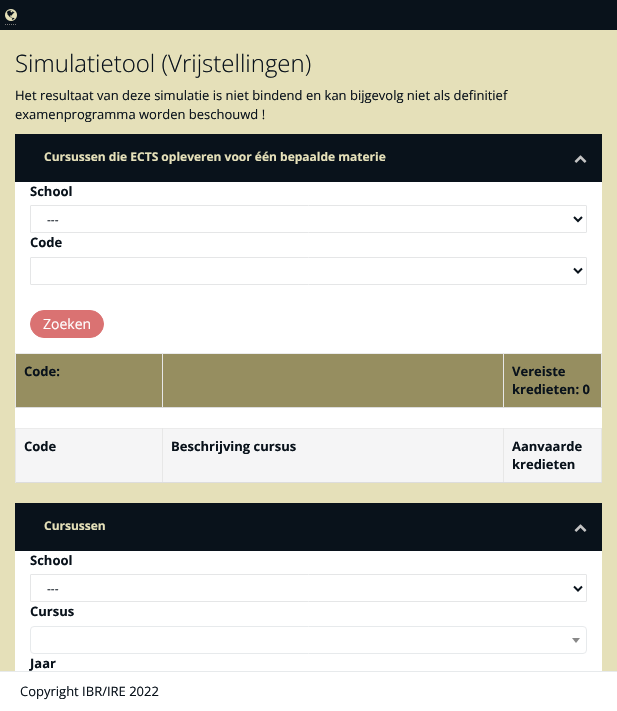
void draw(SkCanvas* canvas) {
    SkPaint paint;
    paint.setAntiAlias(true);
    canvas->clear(0xFFE5E0B9);
    paint.setColor(0xFF09121B);
    canvas->drawRect(SkRect::MakeXYWH(0, 0, 617, 30), paint);
    paint.setStyle(SkPaint::kStroke_Style);
    paint.setStrokeWidth(1);
    paint.setColor(0xFF777777);
    paint.setPathEffect(SkDashPathEffect::Make({{1, 1}}, 0));
    canvas->drawPath(SkPathBuilder().moveTo(5, 24.5f).lineTo(17, 24.5f).detach(), paint);
    paint.setPathEffect(nullptr);
    canvas->drawImageRect(SkImages::DeferredFromEncodedData(SkData::MakeFromFileName("img1.png")), SkRect::MakeXYWH(5, 9, 12, 12), SkSamplingOptions());
    SkFont font1(fontMgr->matchFamilyStyle("Open Sans", SkFontStyle(300, SkFontStyle::kNormal_Width, SkFontStyle::kUpright_Slant)), 24);
    font1.setSubpixel(true);
    paint.setStyle(SkPaint::kFill_Style);
    paint.setColor(0xFF09121B);
    canvas->drawString("Simulatietool (Vrijstellingen)", 15, 72, font1, paint);
    SkFont font2(fontMgr->matchFamilyStyle("Open Sans", SkFontStyle::Normal()), 13);
    font2.setSubpixel(true);
    canvas->drawString("Het resultaat van deze simulatie is niet bindend en kan bijgevolg niet als definitief", 15, 100, font2, paint);
    canvas->drawString("examenprogramma worden beschouwd !", 15, 119, font2, paint);
    canvas->drawRect(SkRect::MakeXYWH(15, 134, 587, 48), paint);
    SkFont font3(fontMgr->matchFamilyStyle("Open Sans", SkFontStyle::Bold()), 12);
    font3.setSubpixel(true);
    paint.setColor(0xFFE5E0B9);
    canvas->drawString("Cursussen die ECTS opleveren voor één bepaalde materie", 44, 161, font3, paint);
    canvas->drawImageRect(SkImages::DeferredFromEncodedData(SkData::MakeFromFileName("img2.png")), SkRect::MakeXYWH(574, 155, 13, 8), SkSamplingOptions());
    paint.setColor(0xFFFFFFFF);
    canvas->drawRect(SkRect::MakeXYWH(15, 182, 587, 246), paint);
    SkFont font4(fontMgr->matchFamilyStyle("Open Sans", SkFontStyle::Bold()), 13);
    font4.setSubpixel(true);
    paint.setColor(0xFF09121B);
    canvas->drawString("School", 30, 196, font4, paint);
    paint.setStyle(SkPaint::kStroke_Style);
    paint.setColor(0xFFE5E6E7);
    canvas->drawRoundRect(SkRect::MakeXYWH(30.5f, 205.5f, 556, 27), 0.5f, 0.5f, paint);
    paint.setStrokeWidth(2);
    paint.setColor(0xFF09121B);
    canvas->drawPath(SkPathBuilder().moveTo(574, 217).lineTo(578, 221).lineTo(582, 217).detach(), paint);
    SkFont font5(fontMgr->matchFamilyStyle("Open Sans", SkFontStyle::Normal()), 12);
    font5.setSubpixel(true);
    paint.setStyle(SkPaint::kFill_Style);
    canvas->drawString("---", 47, 224, font5, paint);
    canvas->drawString("Code", 30, 247, font4, paint);
    paint.setStyle(SkPaint::kStroke_Style);
    paint.setStrokeWidth(1);
    paint.setColor(0xFFE5E6E7);
    canvas->drawRoundRect(SkRect::MakeXYWH(30.5f, 257.5f, 556, 27), 0.5f, 0.5f, paint);
    paint.setStrokeWidth(2);
    paint.setColor(0xFF09121B);
    canvas->drawPath(SkPathBuilder().moveTo(574, 268.5f).lineTo(578, 272.5f).lineTo(582, 268.5f).detach(), paint);
    paint.setStyle(SkPaint::kFill_Style);
    paint.setColor(0xFFDA7272);
    canvas->drawRoundRect(SkRect::MakeXYWH(30.5f, 310.5f, 73, 27), 13.5f, 13.5f, paint);
    paint.setStyle(SkPaint::kStroke_Style);
    paint.setStrokeWidth(1);
    canvas->drawRoundRect(SkRect::MakeXYWH(30.5f, 310.5f, 73, 27), 13.5f, 13.5f, paint);
    SkFont font6(fontMgr->matchFamilyStyle("Open Sans", SkFontStyle::Normal()), 14);
    font6.setSubpixel(true);
    paint.setStyle(SkPaint::kFill_Style);
    paint.setColor(0xFFFFFFFF);
    canvas->drawString("Zoeken", 43, 329, font6, paint);
    paint.setColor(0xFFEBEBEB);
    canvas->drawRect(SkRect::MakeXYWH(15, 353, 587, 1), paint);
    paint.setColor(0xFF968E60);
    canvas->drawRect(SkRect::MakeXYWH(16, 354, 146, 53), paint);
    paint.setColor(0xFFE7E7E7);
    canvas->drawRect(SkRect::MakeXYWH(601, 353, 1, 55), paint);
    paint.setColor(0xFFDDDDDD);
    canvas->drawRect(SkRect::MakeXYWH(503, 407, 99, 1), paint);
    paint.setColor(0xFFE7E7E7);
    canvas->drawRect(SkRect::MakeXYWH(503, 353, 1, 55), paint);
    paint.setColor(0xFFDDDDDD);
    canvas->drawRect(SkRect::MakeXYWH(162, 407, 342, 1), paint);
    paint.setColor(0xFFE7E7E7);
    canvas->drawRect(SkRect::MakeXYWH(162, 353, 1, 55), paint);
    paint.setColor(0xFFDDDDDD);
    canvas->drawRect(SkRect::MakeXYWH(15, 407, 148, 1), paint);
    paint.setColor(0xFFE7E7E7);
    canvas->drawRect(SkRect::MakeXYWH(15, 353, 1, 55), paint);
    paint.setColor(0xFF09121B);
    canvas->drawString("Code:", 24, 376, font4, paint);
    paint.setColor(0xFF968E60);
    canvas->drawRect(SkRect::MakeXYWH(163, 354, 340, 53), paint);
    canvas->drawRect(SkRect::MakeXYWH(504, 354, 97, 53), paint);
    paint.setColor(0xFF09121B);
    canvas->drawString("Vereiste", 512, 376, font4, paint);
    canvas->drawString("kredieten: 0", 512, 394, font4, paint);
    paint.setColor(0xFFEBEBEB);
    canvas->drawRect(SkRect::MakeXYWH(15, 428, 587, 1), paint);
    paint.setColor(0xFFF5F5F6);
    canvas->drawRect(SkRect::MakeXYWH(16, 429, 146, 53), paint);
    paint.setColor(0xFFE7E7E7);
    canvas->drawRect(SkRect::MakeXYWH(601, 428, 1, 55), paint);
    paint.setColor(0xFFDDDDDD);
    canvas->drawRect(SkRect::MakeXYWH(503, 482, 99, 1), paint);
    paint.setColor(0xFFE7E7E7);
    canvas->drawRect(SkRect::MakeXYWH(503, 428, 1, 55), paint);
    paint.setColor(0xFFDDDDDD);
    canvas->drawRect(SkRect::MakeXYWH(162, 482, 342, 1), paint);
    paint.setColor(0xFFE7E7E7);
    canvas->drawRect(SkRect::MakeXYWH(162, 428, 1, 55), paint);
    paint.setColor(0xFFDDDDDD);
    canvas->drawRect(SkRect::MakeXYWH(15, 482, 148, 1), paint);
    paint.setColor(0xFFE7E7E7);
    canvas->drawRect(SkRect::MakeXYWH(15, 428, 1, 55), paint);
    paint.setColor(0xFF09121B);
    canvas->drawString("Code", 24, 451, font4, paint);
    paint.setColor(0xFFF5F5F6);
    canvas->drawRect(SkRect::MakeXYWH(163, 429, 340, 53), paint);
    paint.setColor(0xFF09121B);
    canvas->drawString("Beschrijving cursus", 171, 451, font4, paint);
    paint.setColor(0xFFF5F5F6);
    canvas->drawRect(SkRect::MakeXYWH(504, 429, 97, 53), paint);
    paint.setColor(0xFF09121B);
    canvas->drawString("Aanvaarde", 512, 451, font4, paint);
    canvas->drawString("kredieten", 512, 469, font4, paint);
    canvas->drawRect(SkRect::MakeXYWH(15, 503, 587, 48), paint);
    paint.setColor(0xFFE5E0B9);
    canvas->drawString("Cursussen", 44, 530, font3, paint);
    canvas->drawImageRect(SkImages::DeferredFromEncodedData(SkData::MakeFromFileName("img2.png")), SkRect::MakeXYWH(574, 524, 13, 8), SkSamplingOptions());
    paint.setColor(0xFFFFFFFF);
    canvas->drawRect(SkRect::MakeXYWH(15, 551, 587, 120), paint);
    paint.setColor(0xFF09121B);
    canvas->drawString("School", 30, 565, font4, paint);
    paint.setStyle(SkPaint::kStroke_Style);
    paint.setColor(0xFFE5E6E7);
    canvas->drawRoundRect(SkRect::MakeXYWH(30.5f, 574.5f, 556, 27), 0.5f, 0.5f, paint);
    paint.setStrokeWidth(2);
    paint.setColor(0xFF09121B);
    canvas->drawPath(SkPathBuilder().moveTo(574, 586.5f).lineTo(578, 590.5f).lineTo(582, 586.5f).detach(), paint);
    paint.setStyle(SkPaint::kFill_Style);
    canvas->drawString("---", 47, 593, font5, paint);
    canvas->drawString("Cursus", 30, 616, font4, paint);
    paint.setStyle(SkPaint::kStroke_Style);
    paint.setStrokeWidth(1);
    paint.setColor(0xFFE7EAEC);
    canvas->drawRoundRect(SkRect::MakeXYWH(30.5f, 626.5f, 556, 27), 3.5f, 3.5f, paint);
    paint.setStyle(SkPaint::kFill_Style);
    paint.setColor(0xFF888888);
    canvas->drawPath(SkPathBuilder().moveTo(572, 638).lineTo(580, 638).lineTo(576, 643).close().detach(), paint);
    paint.setColor(0xFF09121B);
    canvas->drawString("Jaar", 30, 668, font4, paint);
    paint.setColor(0xFFFFFFFF);
    canvas->drawRect(SkRect::MakeXYWH(0, 672, 617, 39), paint);
    paint.setColor(0xFFE7EAEC);
    canvas->drawRect(SkRect::MakeXYWH(0, 671, 617, 1), paint);
    paint.setColor(0xFF09121B);
    canvas->drawString("Copyright IBR/IRE 2022", 20, 696, font2, paint);
}
